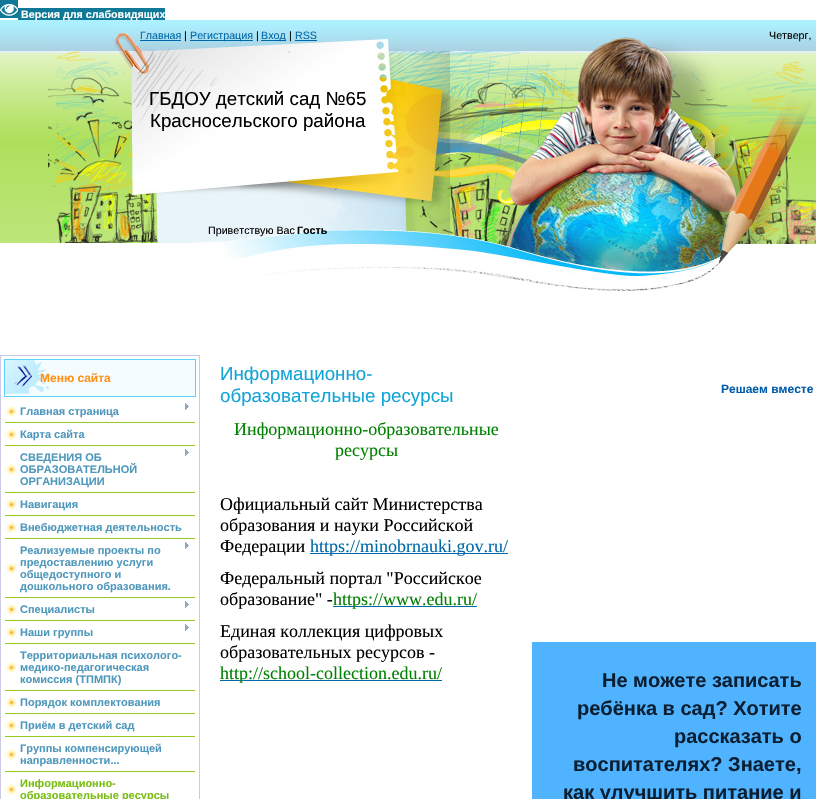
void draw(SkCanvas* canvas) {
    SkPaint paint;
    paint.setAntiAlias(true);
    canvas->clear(0xFFFFFFFF);
    paint.setColor(0xFF107997);
    canvas->drawRect(SkRect::MakeXYWH(0, 0, 18, 18), paint);
    canvas->drawImageRect(SkImages::DeferredFromEncodedData(SkData::MakeFromFileName("img1.png")), SkRect::MakeXYWH(0, 3, 18, 13), SkSamplingOptions());
    canvas->drawRect(SkRect::MakeXYWH(18, 8, 147, 12), paint);
    canvas->drawImageRect(SkImages::DeferredFromEncodedData(SkData::MakeFromFileName("img2.png")), SkRect::MakeXYWH(0, 20, 816, 223), SkSamplingOptions());
    SkFont font1(fontMgr->matchFamilyStyle("Liberation Sans", SkFontStyle::Bold()), 10.7f);
    font1.setSubpixel(true);
    paint.setColor(0xFFFFFFFF);
    canvas->drawString("Версия для слабовидящих", 21, 18, font1, paint);
    canvas->drawImageRect(SkImages::DeferredFromEncodedData(SkData::MakeFromFileName("img3.png")), SkRect::MakeXYWH(47, 28, 769, 263), SkSamplingOptions());
    SkFont font2(fontMgr->matchFamilyStyle("Liberation Sans", SkFontStyle::Normal()), 10.7f);
    font2.setSubpixel(true);
    paint.setColor(0xFF0069A9);
    canvas->drawString("Главная", 140, 39, font2, paint);
    canvas->drawRect(SkRect::MakeXYWH(140, 40, 41, 1), paint);
    paint.setColor(0xFF000000);
    canvas->drawString("|", 184, 39, font2, paint);
    paint.setColor(0xFF0069A9);
    canvas->drawRect(SkRect::MakeXYWH(190, 40, 63, 1), paint);
    canvas->drawString("Регистрация", 190, 39, font2, paint);
    paint.setColor(0xFF000000);
    canvas->drawString("|", 256, 39, font2, paint);
    paint.setColor(0xFF0069A9);
    canvas->drawRect(SkRect::MakeXYWH(261, 40, 25, 1), paint);
    canvas->drawString("Вход", 261, 39, font2, paint);
    paint.setColor(0xFF000000);
    canvas->drawString("|", 289, 39, font2, paint);
    paint.setColor(0xFF0069A9);
    canvas->drawString("RSS", 295, 39, font2, paint);
    canvas->drawRect(SkRect::MakeXYWH(295, 40, 22, 1), paint);
    paint.setColor(0xFF000000);
    canvas->drawString("Четверг,", 769, 39, font2, paint);
    SkFont font3(fontMgr->matchFamilyStyle("Liberation Sans", SkFontStyle::Normal()), 18.75f);
    font3.setSubpixel(true);
    canvas->drawString("ГБДОУ детский сад №65", 149, 105, font3, paint);
    canvas->drawString("Красносельского района", 150, 127, font3, paint);
    canvas->drawString("Приветствую Вас", 208, 234, font2, paint);
    canvas->drawString("Гость", 297, 234, font1, paint);
    paint.setStyle(SkPaint::kStroke_Style);
    paint.setStrokeWidth(1);
    paint.setColor(0xFFCACAE6);
    canvas->drawRect(SkRect::MakeXYWH(0.5f, 355.5f, 199, 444), paint);
    paint.setStyle(SkPaint::kFill_Style);
    paint.setColor(0xFFF5FCFF);
    canvas->drawRect(SkRect::MakeXYWH(5, 360, 190, 36), paint);
    canvas->drawImageRect(SkImages::DeferredFromEncodedData(SkData::MakeFromFileName("img4.png")), SkRect::MakeXYWH(5, 360, 44, 34), SkSamplingOptions());
    paint.setStyle(SkPaint::kStroke_Style);
    paint.setColor(0xFF5BD1FC);
    canvas->drawRect(SkRect::MakeXYWH(4.5f, 359.5f, 191, 37), paint);
    SkFont font4(fontMgr->matchFamilyStyle("Liberation Sans", SkFontStyle::Bold()), 12);
    font4.setSubpixel(true);
    paint.setStyle(SkPaint::kFill_Style);
    paint.setColor(0xFFFF9115);
    canvas->drawString("Меню сайта", 40, 382, font4, paint);
    canvas->drawImageRect(SkImages::DeferredFromEncodedData(SkData::MakeFromFileName("img5.png")), SkRect::MakeXYWH(5, 405, 11, 12), SkSamplingOptions());
    paint.setColor(0xFF97C821);
    canvas->drawRect(SkRect::MakeXYWH(5, 422, 190, 1), paint);
    SkFont font5(fontMgr->matchFamilyStyle("Liberation Sans", SkFontStyle::Bold()), 11);
    font5.setSubpixel(true);
    paint.setColor(0xFF4F98BC);
    canvas->drawString("Главная страница", 20, 415, font5, paint);
    canvas->drawImageRect(SkImages::DeferredFromEncodedData(SkData::MakeFromFileName("img6.png")), SkRect::MakeXYWH(185, 403, 4, 7), SkSamplingOptions());
    canvas->drawImageRect(SkImages::DeferredFromEncodedData(SkData::MakeFromFileName("img5.png")), SkRect::MakeXYWH(5, 428, 11, 12), SkSamplingOptions());
    paint.setColor(0xFF97C821);
    canvas->drawRect(SkRect::MakeXYWH(5, 445, 190, 1), paint);
    paint.setColor(0xFF4F98BC);
    canvas->drawString("Карта сайта", 20, 438, font5, paint);
    canvas->drawImageRect(SkImages::DeferredFromEncodedData(SkData::MakeFromFileName("img5.png")), SkRect::MakeXYWH(5, 463, 11, 12), SkSamplingOptions());
    paint.setColor(0xFF97C821);
    canvas->drawRect(SkRect::MakeXYWH(5, 492, 190, 1), paint);
    paint.setColor(0xFF4F98BC);
    canvas->drawString("СВЕДЕНИЯ ОБ", 20, 461, font5, paint);
    canvas->drawImageRect(SkImages::DeferredFromEncodedData(SkData::MakeFromFileName("img6.png")), SkRect::MakeXYWH(185, 449, 4, 7), SkSamplingOptions());
    canvas->drawString("ОБРАЗОВАТЕЛЬНОЙ", 20, 473, font5, paint);
    canvas->drawString("ОРГАНИЗАЦИИ", 20, 485, font5, paint);
    canvas->drawImageRect(SkImages::DeferredFromEncodedData(SkData::MakeFromFileName("img5.png")), SkRect::MakeXYWH(5, 498, 11, 12), SkSamplingOptions());
    paint.setColor(0xFF97C821);
    canvas->drawRect(SkRect::MakeXYWH(5, 515, 190, 1), paint);
    paint.setColor(0xFF4F98BC);
    canvas->drawString("Навигация", 20, 508, font5, paint);
    canvas->drawImageRect(SkImages::DeferredFromEncodedData(SkData::MakeFromFileName("img5.png")), SkRect::MakeXYWH(5, 521, 11, 12), SkSamplingOptions());
    paint.setColor(0xFF97C821);
    canvas->drawRect(SkRect::MakeXYWH(5, 538, 190, 1), paint);
    paint.setColor(0xFF4F98BC);
    canvas->drawString("Внебюджетная деятельность", 20, 531, font5, paint);
    canvas->drawImageRect(SkImages::DeferredFromEncodedData(SkData::MakeFromFileName("img5.png")), SkRect::MakeXYWH(5, 562, 11, 12), SkSamplingOptions());
    paint.setColor(0xFF97C821);
    canvas->drawRect(SkRect::MakeXYWH(5, 597, 190, 1), paint);
    paint.setColor(0xFF4F98BC);
    canvas->drawString("Реализуемые проекты по", 20, 554, font5, paint);
    canvas->drawImageRect(SkImages::DeferredFromEncodedData(SkData::MakeFromFileName("img6.png")), SkRect::MakeXYWH(185, 542, 4, 7), SkSamplingOptions());
    canvas->drawString("предоставлению услуги", 20, 566, font5, paint);
    canvas->drawString("общедоступного и", 20, 578, font5, paint);
    canvas->drawString("дошкольного образования.", 20, 590, font5, paint);
    canvas->drawImageRect(SkImages::DeferredFromEncodedData(SkData::MakeFromFileName("img5.png")), SkRect::MakeXYWH(5, 603, 11, 12), SkSamplingOptions());
    paint.setColor(0xFF97C821);
    canvas->drawRect(SkRect::MakeXYWH(5, 620, 190, 1), paint);
    paint.setColor(0xFF4F98BC);
    canvas->drawString("Специалисты", 20, 613, font5, paint);
    canvas->drawImageRect(SkImages::DeferredFromEncodedData(SkData::MakeFromFileName("img6.png")), SkRect::MakeXYWH(185, 601, 4, 7), SkSamplingOptions());
    canvas->drawImageRect(SkImages::DeferredFromEncodedData(SkData::MakeFromFileName("img5.png")), SkRect::MakeXYWH(5, 626, 11, 12), SkSamplingOptions());
    paint.setColor(0xFF97C821);
    canvas->drawRect(SkRect::MakeXYWH(5, 643, 190, 1), paint);
    paint.setColor(0xFF4F98BC);
    canvas->drawString("Наши группы", 20, 636, font5, paint);
    canvas->drawImageRect(SkImages::DeferredFromEncodedData(SkData::MakeFromFileName("img6.png")), SkRect::MakeXYWH(185, 624, 4, 7), SkSamplingOptions());
    canvas->drawImageRect(SkImages::DeferredFromEncodedData(SkData::MakeFromFileName("img5.png")), SkRect::MakeXYWH(5, 661, 11, 12), SkSamplingOptions());
    paint.setColor(0xFF97C821);
    canvas->drawRect(SkRect::MakeXYWH(5, 690, 190, 1), paint);
    paint.setColor(0xFF4F98BC);
    canvas->drawString("Территориальная психолого-", 20, 659, font5, paint);
    canvas->drawString("медико-педагогическая", 20, 671, font5, paint);
    canvas->drawString("комиссия (ТПМПК)", 20, 683, font5, paint);
    canvas->drawImageRect(SkImages::DeferredFromEncodedData(SkData::MakeFromFileName("img5.png")), SkRect::MakeXYWH(5, 696, 11, 12), SkSamplingOptions());
    paint.setColor(0xFF97C821);
    canvas->drawRect(SkRect::MakeXYWH(5, 713, 190, 1), paint);
    paint.setColor(0xFF4F98BC);
    canvas->drawString("Порядок комплектования", 20, 706, font5, paint);
    canvas->drawImageRect(SkImages::DeferredFromEncodedData(SkData::MakeFromFileName("img5.png")), SkRect::MakeXYWH(5, 719, 11, 12), SkSamplingOptions());
    paint.setColor(0xFF97C821);
    canvas->drawRect(SkRect::MakeXYWH(5, 736, 190, 1), paint);
    paint.setColor(0xFF4F98BC);
    canvas->drawString("Приём в детский сад", 20, 729, font5, paint);
    canvas->drawImageRect(SkImages::DeferredFromEncodedData(SkData::MakeFromFileName("img5.png")), SkRect::MakeXYWH(5, 748, 11, 12), SkSamplingOptions());
    paint.setColor(0xFF97C821);
    canvas->drawRect(SkRect::MakeXYWH(5, 771, 190, 1), paint);
    paint.setColor(0xFF4F98BC);
    canvas->drawString("Группы компенсирующей", 20, 752, font5, paint);
    canvas->drawString("направленности...", 20, 764, font5, paint);
    canvas->drawImageRect(SkImages::DeferredFromEncodedData(SkData::MakeFromFileName("img5.png")), SkRect::MakeXYWH(5, 783, 11, 12), SkSamplingOptions());
    paint.setColor(0xFF79BD11);
    canvas->drawString("Информационно-", 20, 787, font5, paint);
    canvas->drawString("образовательные ресурсы", 20, 799, font5, paint);
    paint.setColor(0xFF12A4D8);
    canvas->drawString("Информационно-", 220, 380, font3, paint);
    canvas->drawString("образовательные ресурсы", 220, 402, font3, paint);
    SkFont font6(fontMgr->matchFamilyStyle("Liberation Serif", SkFontStyle::Normal()), 18);
    font6.setSubpixel(true);
    paint.setColor(0xFF008000);
    canvas->drawString("Информационно-образовательные", 234, 435, font6, paint);
    canvas->drawString("ресурсы", 335, 456, font6, paint);
    paint.setColor(0xFF000000);
    canvas->drawString("Официальный сайт Министерства", 220, 510, font6, paint);
    canvas->drawString("образования и науки Российской", 220, 531, font6, paint);
    canvas->drawString("Федерации", 220, 552, font6, paint);
    paint.setColor(0xFF0069A9);
    canvas->drawRect(SkRect::MakeXYWH(310, 553, 198, 1), paint);
    canvas->drawString("https://minobrnauki.gov.ru/", 310, 552, font6, paint);
    paint.setColor(0xFF000000);
    canvas->drawString("Федеральный портал \"Российское", 220, 584, font6, paint);
    canvas->drawString("образование\" -", 220, 605, font6, paint);
    paint.setColor(0xFF0069A9);
    canvas->drawRect(SkRect::MakeXYWH(333, 606, 144, 1), paint);
    paint.setColor(0xFF008000);
    canvas->drawString("https://www.edu.ru/", 333, 605, font6, paint);
    paint.setColor(0xFF000000);
    canvas->drawString("Единая коллекция цифровых", 220, 637, font6, paint);
    canvas->drawString("образовательных ресурсов -", 220, 658, font6, paint);
    paint.setColor(0xFF0069A9);
    canvas->drawRect(SkRect::MakeXYWH(220, 680, 222, 1), paint);
    paint.setColor(0xFF008000);
    canvas->drawString("http://school-collection.edu.ru/", 220, 679, font6, paint);
    paint.setColor(0xFF50B3FF);
    canvas->drawRect(SkRect::MakeXYWH(532, 642, 284, 157), paint);
    paint.setColor(0xFF005CA9);
    canvas->drawString("Решаем вместе", 721, 393, font4, paint);
    SkFont font7(fontMgr->matchFamilyStyle("Liberation Sans", SkFontStyle::Bold()), 20);
    font7.setSubpixel(true);
    paint.setColor(0xFF0B1F33);
    canvas->drawString("Не можете записать", 602, 687, font7, paint);
    canvas->drawString("ребёнка в сад? Хотите", 577, 715, font7, paint);
    canvas->drawString("рассказать о", 674, 743, font7, paint);
    canvas->drawString("воспитателях? Знаете,", 573, 771, font7, paint);
    canvas->drawString("как улучшить питание и", 563, 799, font7, paint);
}
